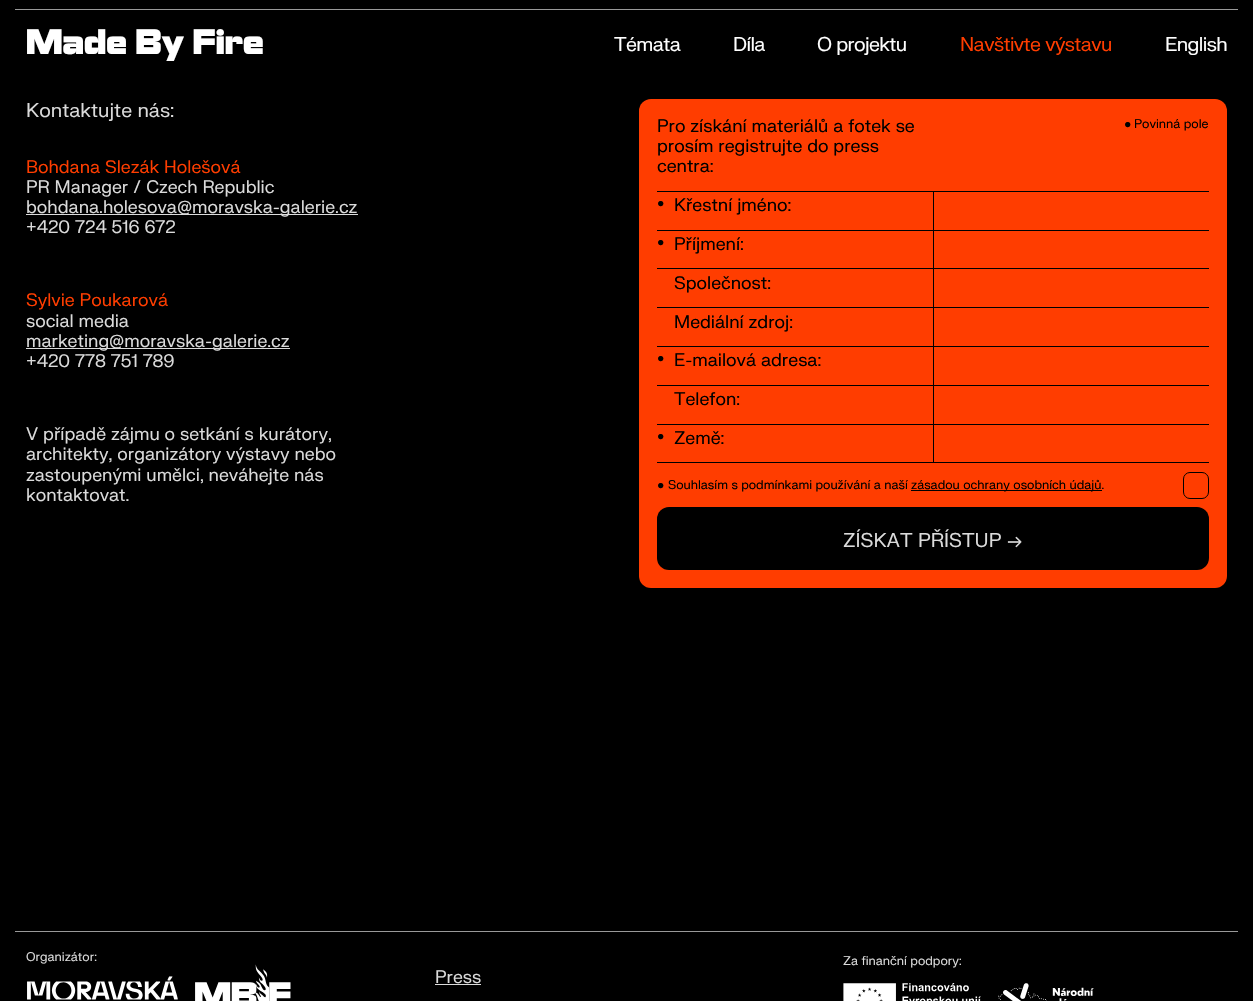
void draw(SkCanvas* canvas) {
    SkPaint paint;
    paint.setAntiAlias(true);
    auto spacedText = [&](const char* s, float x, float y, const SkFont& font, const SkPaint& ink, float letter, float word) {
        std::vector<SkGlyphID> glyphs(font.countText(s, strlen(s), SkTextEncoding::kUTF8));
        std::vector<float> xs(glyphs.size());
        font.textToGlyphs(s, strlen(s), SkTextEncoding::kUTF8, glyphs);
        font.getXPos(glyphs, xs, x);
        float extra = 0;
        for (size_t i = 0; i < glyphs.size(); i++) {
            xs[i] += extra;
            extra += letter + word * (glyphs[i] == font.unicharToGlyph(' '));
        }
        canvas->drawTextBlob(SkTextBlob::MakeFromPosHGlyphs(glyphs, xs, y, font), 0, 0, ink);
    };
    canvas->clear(0xFF000000);
    paint.setColor(0x99FFFFFF);
    canvas->drawRect(SkRect::MakeXYWH(15, 9, 1223, 1), paint);
    SkFont font1(fontMgr->matchFamilyStyle("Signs", SkFontStyle(900, SkFontStyle::kNormal_Width, SkFontStyle::kUpright_Slant)), 35.25f);
    font1.setSubpixel(true);
    paint.setColor(0xFFFFFFFF);
    canvas->drawString("Made By Fire", 26, 54, font1, paint);
    SkFont font2(fontMgr->matchFamilyStyle("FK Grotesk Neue", SkFontStyle::Normal()), 19.4f);
    font2.setSubpixel(true);
    spacedText("Témata", 614, 51, font2, paint, -0.6f, 0);
    spacedText("Díla", 733, 51, font2, paint, -0.6f, 0);
    spacedText("O projektu", 817, 51, font2, paint, -0.6f, 0);
    paint.setColor(0xFFFF3D00);
    spacedText("Navštivte výstavu", 960, 51, font2, paint, -0.6f, 0);
    paint.setColor(0xFFFFFFFF);
    spacedText("English", 1165, 51, font2, paint, -0.6f, 0);
    paint.setColor(0xFFDBDBDB);
    canvas->drawString("Kontaktujte nás:", 26, 117, font2, paint);
    SkFont font3(fontMgr->matchFamilyStyle("FK Grotesk Neue", SkFontStyle::Normal()), 17.6f);
    font3.setSubpixel(true);
    paint.setColor(0xFFFF3D00);
    canvas->drawString("Bohdana Slezák Holešová", 26, 173, font3, paint);
    paint.setColor(0xFFDBDBDB);
    canvas->drawString("PR Manager / Czech Republic", 26, 193, font3, paint);
    canvas->drawRect(SkRect::MakeXYWH(26, 214, 332, 1), paint);
    canvas->drawString("bohdana.holesova@moravska-galerie.cz", 26, 213, font3, paint);
    canvas->drawString("+420 724 516 672", 26, 233, font3, paint);
    paint.setColor(0xFFFF3D00);
    canvas->drawString("Sylvie Poukarová", 26, 306, font3, paint);
    paint.setColor(0xFFDBDBDB);
    canvas->drawString("social media", 26, 327, font3, paint);
    canvas->drawRect(SkRect::MakeXYWH(26, 348, 264, 1), paint);
    canvas->drawString("marketing@moravska-galerie.cz", 26, 347, font3, paint);
    canvas->drawString("+420 778 751 789", 26, 367, font3, paint);
    canvas->drawString("V případě zájmu o setkání s kurátory,", 26, 440, font3, paint);
    canvas->drawString("architekty, organizátory výstavy nebo", 26, 460, font3, paint);
    canvas->drawString("zastoupenými umělci, neváhejte nás", 26, 481, font3, paint);
    canvas->drawString("kontaktovat.", 26, 501, font3, paint);
    paint.setColor(0xFFFF3D00);
    canvas->drawRoundRect(SkRect::MakeXYWH(639, 99, 588, 489), 12, 12, paint);
    paint.setColor(0xFF000000);
    canvas->drawString("Pro získání materiálů a fotek se", 657, 132, font3, paint);
    canvas->drawString("prosím registrujte do press", 657, 152, font3, paint);
    canvas->drawString("centra:", 657, 172, font3, paint);
    SkFont font4(fontMgr->matchFamilyStyle("Liberation Serif", SkFontStyle::Normal()), 12.3f);
    font4.setSubpixel(true);
    canvas->drawString("●", 1124, 128, font4, paint);
    SkFont font5(fontMgr->matchFamilyStyle("FK Grotesk Neue", SkFontStyle::Normal()), 12.3f);
    font5.setSubpixel(true);
    canvas->drawString("Povinná pole", 1134, 128, font5, paint);
    canvas->drawRect(SkRect::MakeXYWH(657, 191, 552, 1), paint);
    canvas->drawString("●", 657, 207, font4, paint);
    canvas->drawString("Křestní jméno:", 674, 211, font3, paint);
    canvas->drawRect(SkRect::MakeXYWH(933, 192, 1, 38), paint);
    canvas->drawRect(SkRect::MakeXYWH(657, 230, 552, 1), paint);
    canvas->drawString("●", 657, 246, font4, paint);
    canvas->drawString("Příjmení:", 674, 250, font3, paint);
    canvas->drawRect(SkRect::MakeXYWH(933, 231, 1, 37), paint);
    canvas->drawRect(SkRect::MakeXYWH(657, 268, 552, 1), paint);
    canvas->drawString("Společnost:", 674, 289, font3, paint);
    canvas->drawRect(SkRect::MakeXYWH(933, 269, 1, 38), paint);
    canvas->drawRect(SkRect::MakeXYWH(657, 307, 552, 1), paint);
    canvas->drawString("Mediální zdroj:", 674, 328, font3, paint);
    canvas->drawRect(SkRect::MakeXYWH(933, 308, 1, 38), paint);
    canvas->drawRect(SkRect::MakeXYWH(657, 346, 552, 1), paint);
    canvas->drawString("●", 657, 362, font4, paint);
    canvas->drawString("E-mailová adresa:", 674, 366, font3, paint);
    canvas->drawRect(SkRect::MakeXYWH(933, 347, 1, 38), paint);
    canvas->drawRect(SkRect::MakeXYWH(657, 385, 552, 1), paint);
    canvas->drawString("Telefon:", 674, 405, font3, paint);
    canvas->drawRect(SkRect::MakeXYWH(933, 386, 1, 38), paint);
    canvas->drawRect(SkRect::MakeXYWH(657, 424, 552, 1), paint);
    canvas->drawString("●", 657, 440, font4, paint);
    canvas->drawString("Země:", 674, 444, font3, paint);
    canvas->drawRect(SkRect::MakeXYWH(933, 425, 1, 37), paint);
    canvas->drawRect(SkRect::MakeXYWH(657, 462, 552, 1), paint);
    canvas->drawString("●", 657, 489, font4, paint);
    canvas->drawString("Souhlasím s podmínkami používání a naší", 668, 489, font5, paint);
    canvas->drawRect(SkRect::MakeXYWH(911, 490, 191, 1), paint);
    canvas->drawString("zásadou ochrany osobních údajů.", 911, 489, font5, paint);
    paint.setStyle(SkPaint::kStroke_Style);
    paint.setStrokeWidth(1);
    canvas->drawRoundRect(SkRect::MakeXYWH(1183.5f, 472.5f, 25, 26), 6.5f, 6.5f, paint);
    paint.setStyle(SkPaint::kFill_Style);
    canvas->drawRoundRect(SkRect::MakeXYWH(657, 507, 552, 63), 12, 12, paint);
    paint.setColor(0xFFDBDBDB);
    canvas->drawString("ZÍSKAT PŘÍSTUP →", 843, 547, font2, paint);
    paint.setColor(0xFF999999);
    canvas->drawRect(SkRect::MakeXYWH(15, 931, 1223, 1), paint);
    paint.setColor(0xFFDBDBDB);
    canvas->drawString("Organizátor:", 26, 961, font5, paint);
    canvas->drawImageRect(SkImages::DeferredFromEncodedData(SkData::MakeFromFileName("img1.png")), SkRect::MakeXYWH(27, 976, 151, 24), SkSamplingOptions());
    canvas->drawImageRect(SkImages::DeferredFromEncodedData(SkData::MakeFromFileName("img2.png")), SkRect::MakeXYWH(195, 964, 96, 37), SkSamplingOptions());
    canvas->drawString("Za finanční podpory:", 843, 965, font5, paint);
    canvas->drawImageRect(SkImages::DeferredFromEncodedData(SkData::MakeFromFileName("img3.png")), SkRect::MakeXYWH(843, 983, 138, 18), SkSamplingOptions());
    canvas->drawImageRect(SkImages::DeferredFromEncodedData(SkData::MakeFromFileName("img4.png")), SkRect::MakeXYWH(998, 983, 96, 18), SkSamplingOptions());
    canvas->drawString("Press", 435, 983, font3, paint);
    canvas->drawRect(SkRect::MakeXYWH(435, 984, 46, 1), paint);
}
